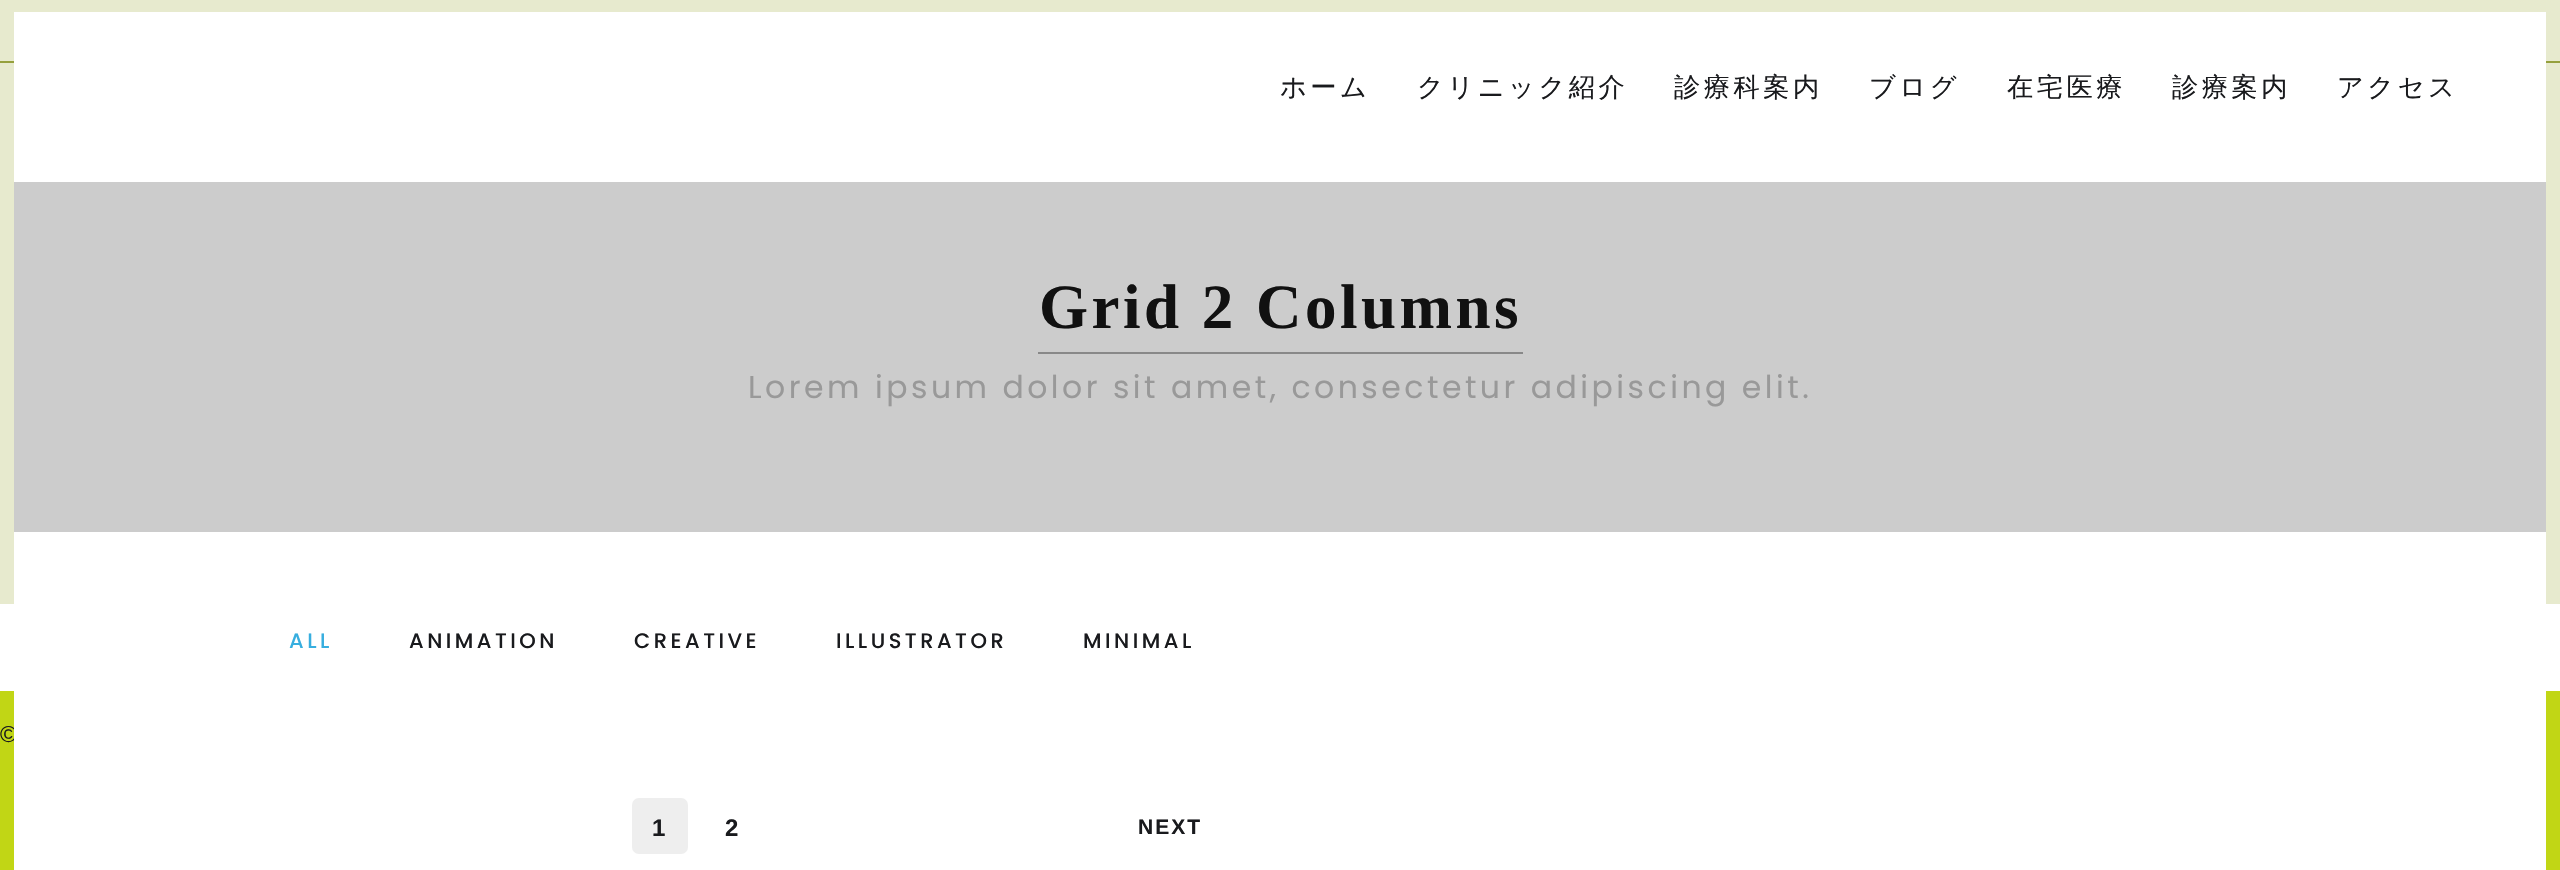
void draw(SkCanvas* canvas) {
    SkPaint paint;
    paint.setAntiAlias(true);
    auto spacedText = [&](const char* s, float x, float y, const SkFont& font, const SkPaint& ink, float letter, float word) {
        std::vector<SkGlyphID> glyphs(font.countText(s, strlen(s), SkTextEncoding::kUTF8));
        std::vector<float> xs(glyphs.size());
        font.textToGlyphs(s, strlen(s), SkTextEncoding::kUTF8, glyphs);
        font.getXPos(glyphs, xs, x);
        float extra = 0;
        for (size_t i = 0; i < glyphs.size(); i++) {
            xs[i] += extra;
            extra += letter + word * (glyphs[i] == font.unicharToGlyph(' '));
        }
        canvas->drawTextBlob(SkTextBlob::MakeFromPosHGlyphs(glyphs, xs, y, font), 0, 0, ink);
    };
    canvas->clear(0xFFFFFFFF);
    paint.setColor(0xFFE7EACE);
    canvas->drawRect(SkRect::MakeXYWH(0, 0, 2560, 604), paint);
    paint.setColor(0xFF95A03D);
    canvas->drawRect(SkRect::MakeXYWH(0, 61, 2560, 2), paint);
    paint.setColor(0xFFC1D615);
    canvas->drawRect(SkRect::MakeXYWH(0, 691, 2560, 179), paint);
    SkFont font1(fontMgr->matchFamilyStyle("Liberation Sans", SkFontStyle::Normal()), 23);
    font1.setSubpixel(true);
    paint.setColor(0xFF191A1D);
    spacedText("©", 0, 742, font1, paint, 3.5f, 0);
    paint.setColor(0xFFFFFFFF);
    canvas->drawRect(SkRect::MakeXYWH(14, 12, 2532, 858), paint);
    SkFont font2(fontMgr->matchFamilyStyle("WenQuanYi Zen Hei", SkFontStyle(500, SkFontStyle::kNormal_Width, SkFontStyle::kUpright_Slant)), 26.25f);
    font2.setSubpixel(true);
    paint.setColor(0xFF191A1D);
    spacedText("ホーム", 1280, 96, font2, paint, 3.5f, 0);
    spacedText("クリニック紹介", 1417, 96, font2, paint, 3.5f, 0);
    spacedText("診療科案内", 1674, 96, font2, paint, 3.5f, 0);
    spacedText("ブログ", 1869, 96, font2, paint, 3.5f, 0);
    spacedText("在宅医療", 2007, 96, font2, paint, 3.5f, 0);
    spacedText("診療案内", 2172, 96, font2, paint, 3.5f, 0);
    spacedText("アクセス", 2337, 96, font2, paint, 3.5f, 0);
    paint.setColor(0xFFCCCCCC);
    canvas->drawRect(SkRect::MakeXYWH(14, 182, 2532, 350), paint);
    paint.setColor(0xFF888888);
    canvas->drawRect(SkRect::MakeXYWH(1038, 352, 485, 2), paint);
    SkFont font3(fontMgr->matchFamilyStyle("Liberation Serif", SkFontStyle::Bold()), 63);
    font3.setSubpixel(true);
    paint.setColor(0xFF111111);
    spacedText("Grid 2 Columns", 1039, 328, font3, paint, 3.5f, 0);
    SkFont font4(fontMgr->matchFamilyStyle("Poppins", SkFontStyle::Normal()), 31.5f);
    font4.setSubpixel(true);
    paint.setColor(0xFF999999);
    spacedText("Lorem ipsum dolor sit amet, consectetur adipiscing elit.", 748, 398, font4, paint, 3.5f, 0);
    SkFont font5(fontMgr->matchFamilyStyle("Poppins", SkFontStyle(500, SkFontStyle::kNormal_Width, SkFontStyle::kUpright_Slant)), 21);
    font5.setSubpixel(true);
    paint.setColor(0xFF37AEDF);
    spacedText("ALL", 289, 648, font5, paint, 3.5f, 0);
    paint.setColor(0xFF191A1D);
    spacedText("ANIMATION", 409, 648, font5, paint, 3.5f, 0);
    spacedText("CREATIVE", 634, 648, font5, paint, 3.5f, 0);
    spacedText("ILLUSTRATOR", 836, 648, font5, paint, 3.5f, 0);
    spacedText("MINIMAL", 1083, 648, font5, paint, 3.5f, 0);
    paint.setColor(0xFFEEEEEE);
    canvas->drawRoundRect(SkRect::MakeXYWH(632, 798, 56, 56), 7, 7, paint);
    SkFont font6(fontMgr->matchFamilyStyle("Liberation Sans", SkFontStyle::Bold()), 24);
    font6.setSubpixel(true);
    paint.setColor(0xFF191A1D);
    spacedText("1", 652, 836, font6, paint, 3.5f, 0);
    spacedText("2", 725, 836, font6, paint, 3.5f, 0);
    SkFont font7(fontMgr->matchFamilyStyle("Liberation Sans", SkFontStyle::Bold()), 21);
    font7.setSubpixel(true);
    spacedText("NEXT", 1138, 834, font7, paint, 2, 0);
}
